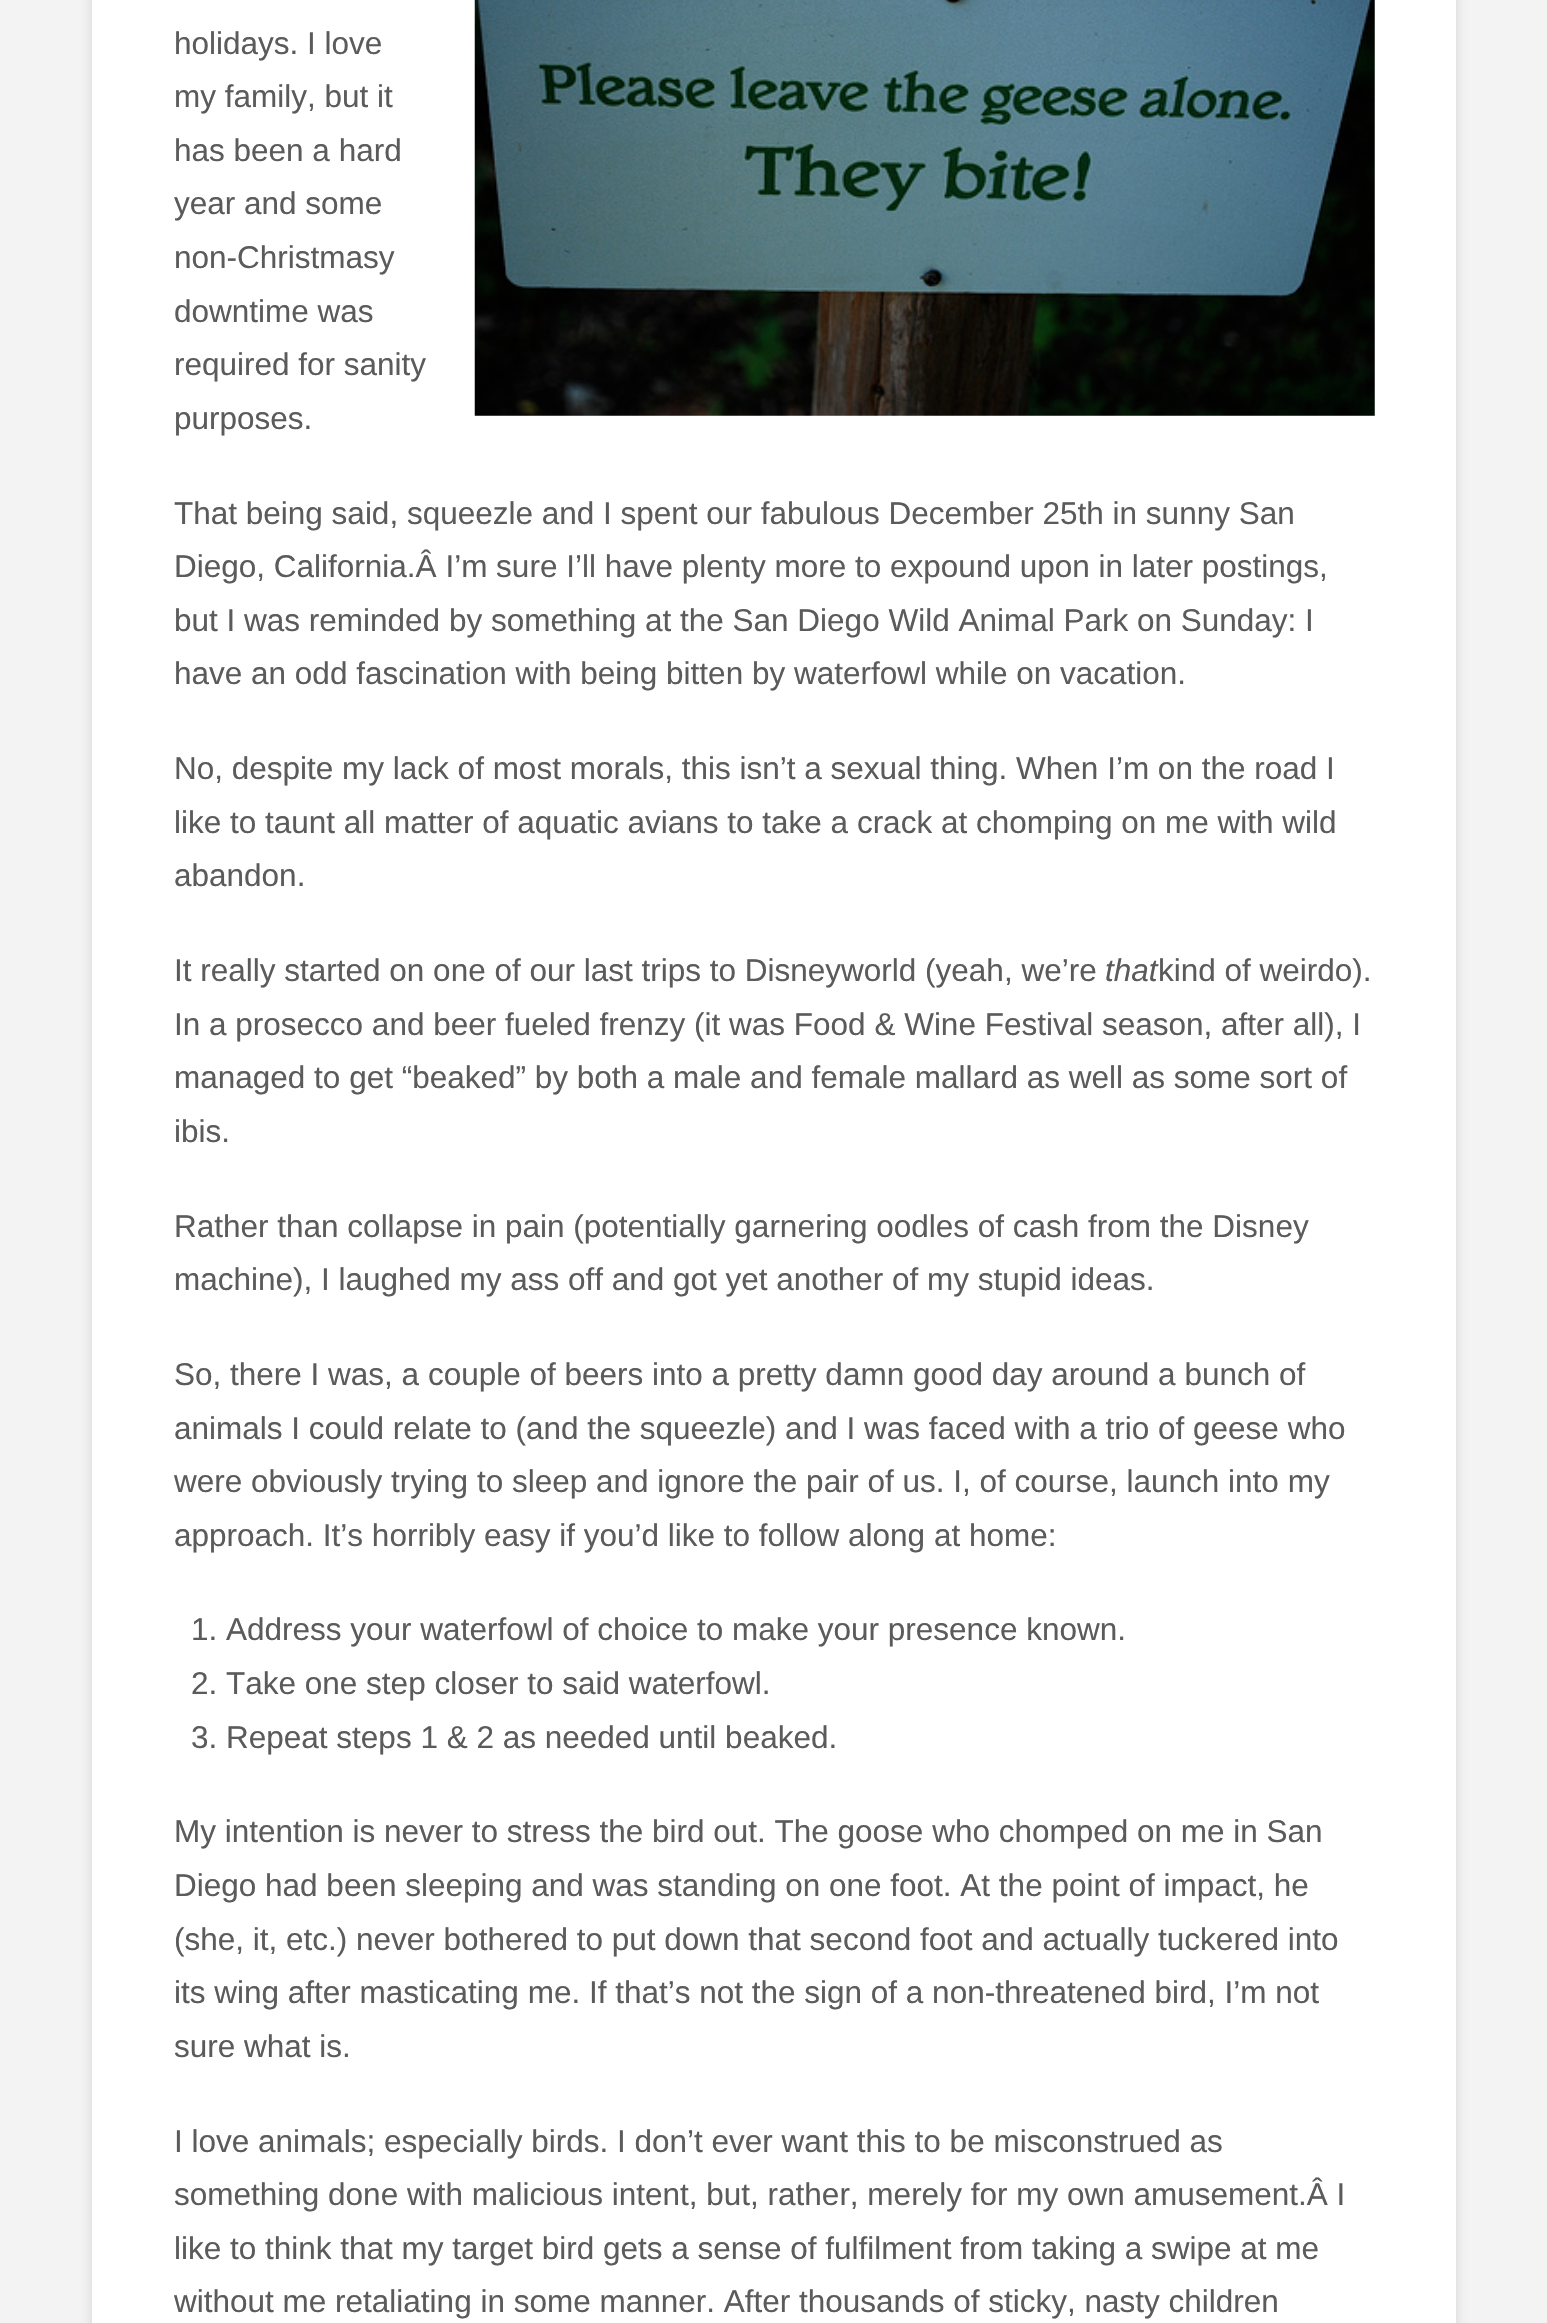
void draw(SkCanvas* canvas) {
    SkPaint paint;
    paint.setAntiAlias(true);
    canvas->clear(0xFFF3F3F3);
    paint.setColor(0x21000000);
    paint.setMaskFilter(SkMaskFilter::MakeBlur(kNormal_SkBlurStyle, 5.5f));
    canvas->drawRoundRect(SkRect::MakeXYWH(92, -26, 1364, 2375), 9, 9, paint);
    paint.setMaskFilter(nullptr);
    paint.setColor(0xFFFFFFFF);
    canvas->drawRect(SkRect::MakeXYWH(92, 0, 1364, 2323), paint);
    SkFont font1(fontMgr->matchFamilyStyle("Liberation Sans", SkFontStyle::Normal()), 31.5f);
    font1.setSubpixel(true);
    paint.setColor(0xFF5B5B5B);
    canvas->drawString("holidays. I love", 174, 54, font1, paint);
    canvas->drawImageRect(SkImages::DeferredFromEncodedData(SkData::MakeFromFileName("img1.png")), SkRect::MakeXYWH(474, 0, 901, 416), SkSamplingOptions());
    canvas->drawString("my family, but it", 174, 107, font1, paint);
    canvas->drawString("has been a hard", 174, 161, font1, paint);
    canvas->drawString("year and some", 174, 214, font1, paint);
    canvas->drawString("non-Christmasy", 174, 268, font1, paint);
    canvas->drawString("downtime was", 174, 322, font1, paint);
    canvas->drawString("required for sanity", 174, 375, font1, paint);
    canvas->drawString("purposes.", 174, 429, font1, paint);
    canvas->drawString("That being said, squeezle and I spent our fabulous December 25th in sunny San", 174, 524, font1, paint);
    canvas->drawString("Diego, California.Â I’m sure I’ll have plenty more to expound upon in later postings,", 174, 577, font1, paint);
    canvas->drawString("but I was reminded by something at the San Diego Wild Animal Park on Sunday: I", 174, 631, font1, paint);
    canvas->drawString("have an odd fascination with being bitten by waterfowl while on vacation.", 174, 684, font1, paint);
    canvas->drawString("No, despite my lack of most morals, this isn’t a sexual thing. When I’m on the road I", 174, 779, font1, paint);
    canvas->drawString("like to taunt all matter of aquatic avians to take a crack at chomping on me with wild", 174, 833, font1, paint);
    canvas->drawString("abandon.", 174, 886, font1, paint);
    canvas->drawString("It really started on one of our last trips to Disneyworld (yeah, we’re", 174, 981, font1, paint);
    SkFont font2(fontMgr->matchFamilyStyle("Liberation Sans", SkFontStyle::Italic()), 31.5f);
    font2.setSubpixel(true);
    canvas->drawString("that", 1105, 981, font2, paint);
    canvas->drawString("kind of weirdo).", 1158, 981, font1, paint);
    canvas->drawString("In a prosecco and beer fueled frenzy (it was Food & Wine Festival season, after all), I", 174, 1035, font1, paint);
    canvas->drawString("managed to get “beaked” by both a male and female mallard as well as some sort of", 174, 1088, font1, paint);
    canvas->drawString("ibis.", 174, 1142, font1, paint);
    canvas->drawString("Rather than collapse in pain (potentially garnering oodles of cash from the Disney", 174, 1237, font1, paint);
    canvas->drawString("machine), I laughed my ass off and got yet another of my stupid ideas.", 174, 1290, font1, paint);
    canvas->drawString("So, there I was, a couple of beers into a pretty damn good day around a bunch of", 174, 1385, font1, paint);
    canvas->drawString("animals I could relate to (and the squeezle) and I was faced with a trio of geese who", 174, 1439, font1, paint);
    canvas->drawString("were obviously trying to sleep and ignore the pair of us. I, of course, launch into my", 174, 1492, font1, paint);
    canvas->drawString("approach. It’s horribly easy if you’d like to follow along at home:", 174, 1546, font1, paint);
    canvas->drawString("1. Address your waterfowl of choice to make your presence known.", 191, 1640, font1, paint);
    canvas->drawString("2. Take one step closer to said waterfowl.", 191, 1694, font1, paint);
    canvas->drawString("3. Repeat steps 1 & 2 as needed until beaked.", 191, 1748, font1, paint);
    canvas->drawString("My intention is never to stress the bird out. The goose who chomped on me in San", 174, 1842, font1, paint);
    canvas->drawString("Diego had been sleeping and was standing on one foot. At the point of impact, he", 174, 1896, font1, paint);
    canvas->drawString("(she, it, etc.) never bothered to put down that second foot and actually tuckered into", 174, 1950, font1, paint);
    canvas->drawString("its wing after masticating me. If that’s not the sign of a non-threatened bird, I’m not", 174, 2003, font1, paint);
    canvas->drawString("sure what is.", 174, 2057, font1, paint);
    canvas->drawString("I love animals; especially birds. I don’t ever want this to be misconstrued as", 174, 2152, font1, paint);
    canvas->drawString("something done with malicious intent, but, rather, merely for my own amusement.Â I", 174, 2205, font1, paint);
    canvas->drawString("like to think that my target bird gets a sense of fulfilment from taking a swipe at me", 174, 2259, font1, paint);
    canvas->drawString("without me retaliating in some manner. After thousands of sticky, nasty children", 174, 2312, font1, paint);
}
